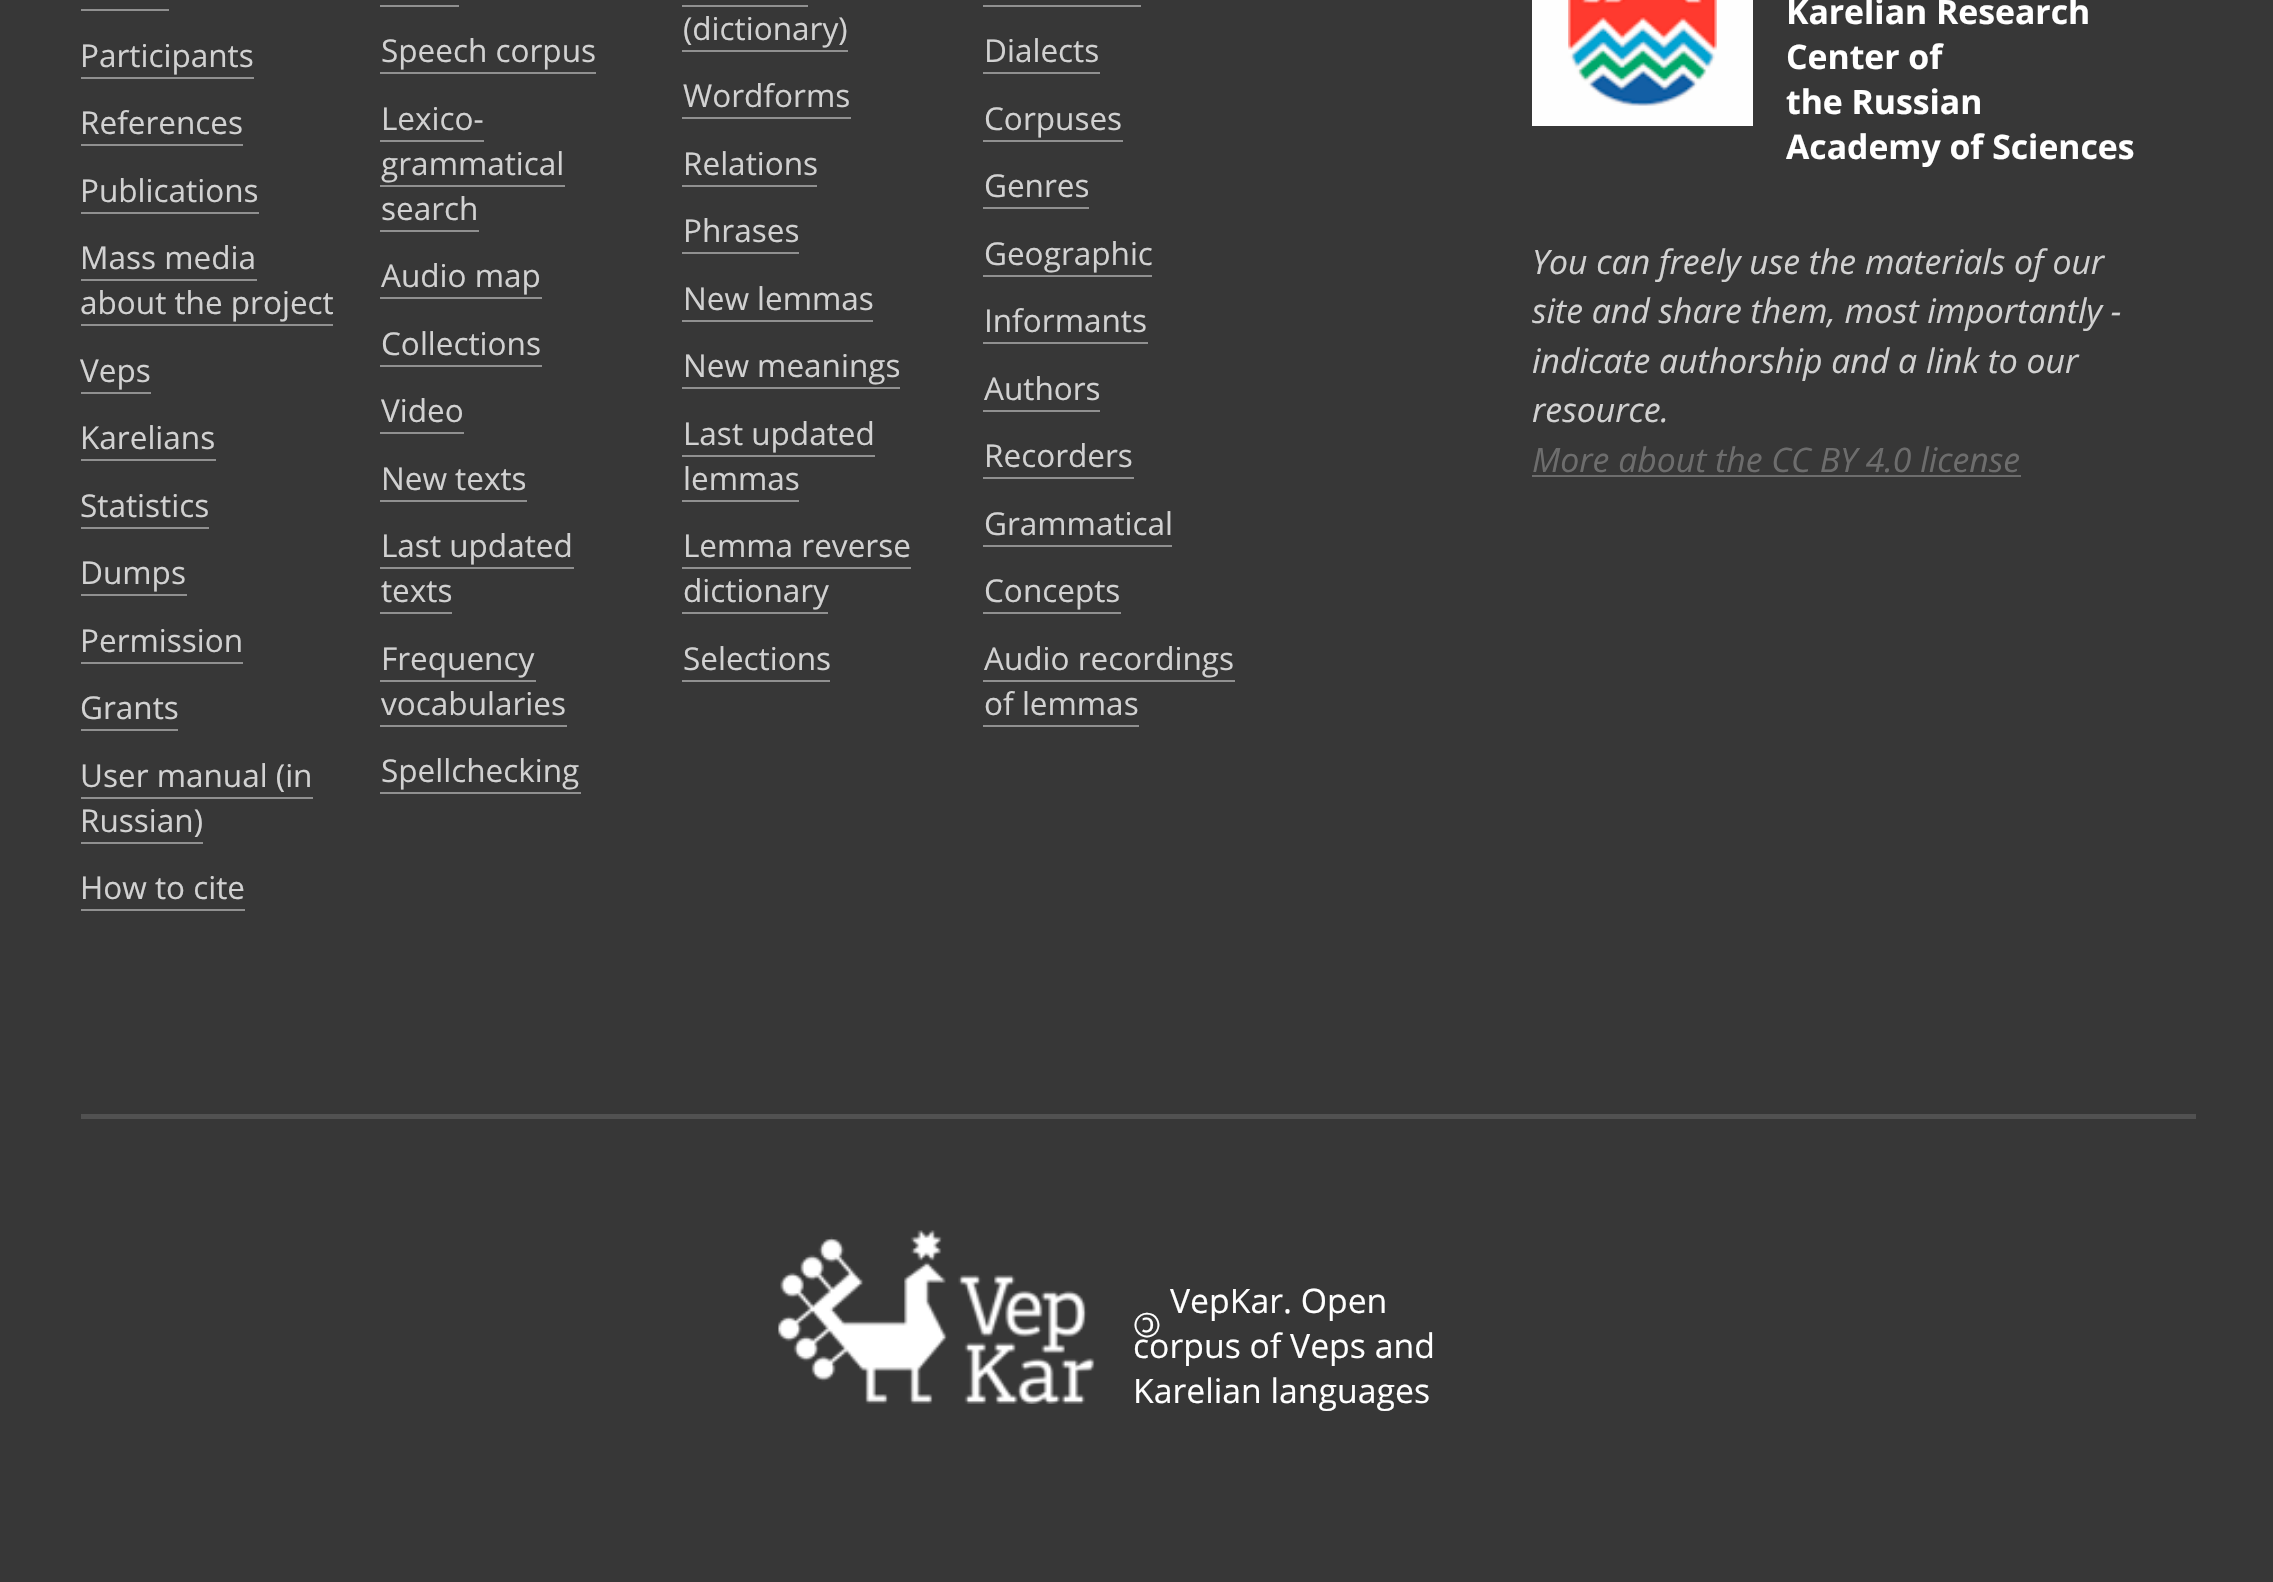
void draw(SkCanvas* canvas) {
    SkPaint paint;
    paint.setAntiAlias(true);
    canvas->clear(0xFF373737);
    paint.setColor(0xFF909090);
    canvas->drawRect(SkRect::MakeXYWH(81, 9, 88, 2), paint);
    SkFont font1(fontMgr->matchFamilyStyle("Open Sans", SkFontStyle::Normal()), 31.5f);
    font1.setSubpixel(true);
    paint.setColor(0xFFD1D1D1);
    canvas->drawString("Participants", 80, 67, font1, paint);
    paint.setColor(0xFF909090);
    canvas->drawRect(SkRect::MakeXYWH(81, 77, 173, 2), paint);
    paint.setColor(0xFFD1D1D1);
    canvas->drawString("References", 80, 134, font1, paint);
    paint.setColor(0xFF909090);
    canvas->drawRect(SkRect::MakeXYWH(81, 144, 162, 2), paint);
    paint.setColor(0xFFD1D1D1);
    canvas->drawString("Publications", 80, 202, font1, paint);
    paint.setColor(0xFF909090);
    canvas->drawRect(SkRect::MakeXYWH(81, 212, 178, 2), paint);
    paint.setColor(0xFFD1D1D1);
    canvas->drawString("Mass media", 80, 269, font1, paint);
    paint.setColor(0xFF909090);
    canvas->drawRect(SkRect::MakeXYWH(81, 279, 176, 2), paint);
    paint.setColor(0xFFD1D1D1);
    canvas->drawString("about the project", 80, 314, font1, paint);
    paint.setColor(0xFF909090);
    canvas->drawRect(SkRect::MakeXYWH(81, 324, 252, 2), paint);
    paint.setColor(0xFFD1D1D1);
    canvas->drawString("Veps", 80, 382, font1, paint);
    paint.setColor(0xFF909090);
    canvas->drawRect(SkRect::MakeXYWH(81, 392, 70, 2), paint);
    paint.setColor(0xFFD1D1D1);
    canvas->drawString("Karelians", 80, 449, font1, paint);
    paint.setColor(0xFF909090);
    canvas->drawRect(SkRect::MakeXYWH(81, 459, 135, 2), paint);
    paint.setColor(0xFFD1D1D1);
    canvas->drawString("Statistics", 80, 517, font1, paint);
    paint.setColor(0xFF909090);
    canvas->drawRect(SkRect::MakeXYWH(81, 527, 128, 2), paint);
    paint.setColor(0xFFD1D1D1);
    canvas->drawString("Dumps", 80, 584, font1, paint);
    paint.setColor(0xFF909090);
    canvas->drawRect(SkRect::MakeXYWH(81, 594, 106, 2), paint);
    paint.setColor(0xFFD1D1D1);
    canvas->drawString("Permission", 80, 652, font1, paint);
    paint.setColor(0xFF909090);
    canvas->drawRect(SkRect::MakeXYWH(81, 662, 162, 2), paint);
    paint.setColor(0xFFD1D1D1);
    canvas->drawString("Grants", 80, 719, font1, paint);
    paint.setColor(0xFF909090);
    canvas->drawRect(SkRect::MakeXYWH(81, 729, 97, 2), paint);
    paint.setColor(0xFFD1D1D1);
    canvas->drawString("User manual (in", 80, 787, font1, paint);
    paint.setColor(0xFF909090);
    canvas->drawRect(SkRect::MakeXYWH(81, 797, 232, 2), paint);
    paint.setColor(0xFFD1D1D1);
    canvas->drawString("Russian)", 80, 832, font1, paint);
    paint.setColor(0xFF909090);
    canvas->drawRect(SkRect::MakeXYWH(81, 842, 122, 2), paint);
    paint.setColor(0xFFD1D1D1);
    canvas->drawString("How to cite", 80, 899, font1, paint);
    paint.setColor(0xFF909090);
    canvas->drawRect(SkRect::MakeXYWH(81, 909, 164, 2), paint);
    canvas->drawRect(SkRect::MakeXYWH(380, 5, 79, 2), paint);
    paint.setColor(0xFFD1D1D1);
    canvas->drawString("Speech corpus", 381, 62, font1, paint);
    paint.setColor(0xFF909090);
    canvas->drawRect(SkRect::MakeXYWH(380, 72, 216, 2), paint);
    paint.setColor(0xFFD1D1D1);
    canvas->drawString("Lexico-", 381, 130, font1, paint);
    paint.setColor(0xFF909090);
    canvas->drawRect(SkRect::MakeXYWH(380, 140, 104, 2), paint);
    paint.setColor(0xFFD1D1D1);
    canvas->drawString("grammatical", 381, 175, font1, paint);
    paint.setColor(0xFF909090);
    canvas->drawRect(SkRect::MakeXYWH(380, 185, 185, 2), paint);
    paint.setColor(0xFFD1D1D1);
    canvas->drawString("search", 381, 220, font1, paint);
    paint.setColor(0xFF909090);
    canvas->drawRect(SkRect::MakeXYWH(380, 230, 99, 2), paint);
    paint.setColor(0xFFD1D1D1);
    canvas->drawString("Audio map", 381, 287, font1, paint);
    paint.setColor(0xFF909090);
    canvas->drawRect(SkRect::MakeXYWH(380, 297, 162, 2), paint);
    paint.setColor(0xFFD1D1D1);
    canvas->drawString("Collections", 381, 355, font1, paint);
    paint.setColor(0xFF909090);
    canvas->drawRect(SkRect::MakeXYWH(380, 365, 162, 2), paint);
    paint.setColor(0xFFD1D1D1);
    canvas->drawString("Video", 381, 422, font1, paint);
    paint.setColor(0xFF909090);
    canvas->drawRect(SkRect::MakeXYWH(380, 432, 84, 2), paint);
    paint.setColor(0xFFD1D1D1);
    canvas->drawString("New texts", 381, 490, font1, paint);
    paint.setColor(0xFF909090);
    canvas->drawRect(SkRect::MakeXYWH(380, 500, 147, 2), paint);
    paint.setColor(0xFFD1D1D1);
    canvas->drawString("Last updated", 381, 557, font1, paint);
    paint.setColor(0xFF909090);
    canvas->drawRect(SkRect::MakeXYWH(380, 567, 194, 2), paint);
    paint.setColor(0xFFD1D1D1);
    canvas->drawString("texts", 381, 602, font1, paint);
    paint.setColor(0xFF909090);
    canvas->drawRect(SkRect::MakeXYWH(380, 612, 72, 2), paint);
    paint.setColor(0xFFD1D1D1);
    canvas->drawString("Frequency", 381, 670, font1, paint);
    paint.setColor(0xFF909090);
    canvas->drawRect(SkRect::MakeXYWH(380, 680, 156, 2), paint);
    paint.setColor(0xFFD1D1D1);
    canvas->drawString("vocabularies", 381, 715, font1, paint);
    paint.setColor(0xFF909090);
    canvas->drawRect(SkRect::MakeXYWH(380, 725, 187, 2), paint);
    paint.setColor(0xFFD1D1D1);
    canvas->drawString("Spellchecking", 381, 782, font1, paint);
    paint.setColor(0xFF909090);
    canvas->drawRect(SkRect::MakeXYWH(380, 792, 201, 2), paint);
    paint.setColor(0xFFD1D1D1);
    canvas->drawString("(dictionary)", 683, 40, font1, paint);
    paint.setColor(0xFF909090);
    canvas->drawRect(SkRect::MakeXYWH(682, 5, 126, 2), paint);
    canvas->drawRect(SkRect::MakeXYWH(682, 50, 166, 2), paint);
    paint.setColor(0xFFD1D1D1);
    canvas->drawString("Wordforms", 683, 107, font1, paint);
    paint.setColor(0xFF909090);
    canvas->drawRect(SkRect::MakeXYWH(682, 117, 169, 2), paint);
    paint.setColor(0xFFD1D1D1);
    canvas->drawString("Relations", 683, 175, font1, paint);
    paint.setColor(0xFF909090);
    canvas->drawRect(SkRect::MakeXYWH(682, 185, 135, 2), paint);
    paint.setColor(0xFFD1D1D1);
    canvas->drawString("Phrases", 683, 242, font1, paint);
    paint.setColor(0xFF909090);
    canvas->drawRect(SkRect::MakeXYWH(682, 252, 117, 2), paint);
    paint.setColor(0xFFD1D1D1);
    canvas->drawString("New lemmas", 683, 310, font1, paint);
    paint.setColor(0xFF909090);
    canvas->drawRect(SkRect::MakeXYWH(682, 320, 191, 2), paint);
    paint.setColor(0xFFD1D1D1);
    canvas->drawString("New meanings", 683, 377, font1, paint);
    paint.setColor(0xFF909090);
    canvas->drawRect(SkRect::MakeXYWH(682, 387, 218, 2), paint);
    paint.setColor(0xFFD1D1D1);
    canvas->drawString("Last updated", 683, 445, font1, paint);
    paint.setColor(0xFF909090);
    canvas->drawRect(SkRect::MakeXYWH(682, 455, 193, 2), paint);
    paint.setColor(0xFFD1D1D1);
    canvas->drawString("lemmas", 683, 490, font1, paint);
    paint.setColor(0xFF909090);
    canvas->drawRect(SkRect::MakeXYWH(682, 500, 117, 2), paint);
    paint.setColor(0xFFD1D1D1);
    canvas->drawString("Lemma reverse", 683, 557, font1, paint);
    paint.setColor(0xFF909090);
    canvas->drawRect(SkRect::MakeXYWH(682, 567, 229, 2), paint);
    paint.setColor(0xFFD1D1D1);
    canvas->drawString("dictionary", 683, 602, font1, paint);
    paint.setColor(0xFF909090);
    canvas->drawRect(SkRect::MakeXYWH(682, 612, 146, 2), paint);
    paint.setColor(0xFFD1D1D1);
    canvas->drawString("Selections", 683, 670, font1, paint);
    paint.setColor(0xFF909090);
    canvas->drawRect(SkRect::MakeXYWH(682, 680, 148, 2), paint);
    canvas->drawRect(SkRect::MakeXYWH(983, 5, 158, 2), paint);
    paint.setColor(0xFFD1D1D1);
    canvas->drawString("Dialects", 984, 62, font1, paint);
    paint.setColor(0xFF909090);
    canvas->drawRect(SkRect::MakeXYWH(983, 72, 117, 2), paint);
    paint.setColor(0xFFD1D1D1);
    canvas->drawString("Corpuses", 984, 130, font1, paint);
    paint.setColor(0xFF909090);
    canvas->drawRect(SkRect::MakeXYWH(983, 140, 140, 2), paint);
    paint.setColor(0xFFD1D1D1);
    canvas->drawString("Genres", 984, 197, font1, paint);
    paint.setColor(0xFF909090);
    canvas->drawRect(SkRect::MakeXYWH(983, 207, 106, 2), paint);
    paint.setColor(0xFFD1D1D1);
    canvas->drawString("Geographic", 984, 265, font1, paint);
    paint.setColor(0xFF909090);
    canvas->drawRect(SkRect::MakeXYWH(983, 275, 169, 2), paint);
    paint.setColor(0xFFD1D1D1);
    canvas->drawString("Informants", 984, 332, font1, paint);
    paint.setColor(0xFF909090);
    canvas->drawRect(SkRect::MakeXYWH(983, 342, 165, 2), paint);
    paint.setColor(0xFFD1D1D1);
    canvas->drawString("Authors", 984, 400, font1, paint);
    paint.setColor(0xFF909090);
    canvas->drawRect(SkRect::MakeXYWH(983, 410, 117, 2), paint);
    paint.setColor(0xFFD1D1D1);
    canvas->drawString("Recorders", 984, 467, font1, paint);
    paint.setColor(0xFF909090);
    canvas->drawRect(SkRect::MakeXYWH(983, 477, 151, 2), paint);
    paint.setColor(0xFFD1D1D1);
    canvas->drawString("Grammatical", 984, 535, font1, paint);
    paint.setColor(0xFF909090);
    canvas->drawRect(SkRect::MakeXYWH(983, 545, 189, 2), paint);
    paint.setColor(0xFFD1D1D1);
    canvas->drawString("Сoncepts", 984, 602, font1, paint);
    paint.setColor(0xFF909090);
    canvas->drawRect(SkRect::MakeXYWH(983, 612, 138, 2), paint);
    paint.setColor(0xFFD1D1D1);
    canvas->drawString("Audio recordings", 984, 670, font1, paint);
    paint.setColor(0xFF909090);
    canvas->drawRect(SkRect::MakeXYWH(983, 680, 252, 2), paint);
    paint.setColor(0xFFD1D1D1);
    canvas->drawString("of lemmas", 984, 715, font1, paint);
    paint.setColor(0xFF909090);
    canvas->drawRect(SkRect::MakeXYWH(983, 725, 156, 2), paint);
    paint.setColor(0xFFFEFEFE);
    canvas->drawRect(SkRect::MakeXYWH(1532, 0, 221, 126), paint);
    canvas->drawImageRect(SkImages::DeferredFromEncodedData(SkData::MakeFromFileName("img1.png")), SkRect::MakeXYWH(1568, 0, 149, 106), SkSamplingOptions());
    SkFont font2(fontMgr->matchFamilyStyle("Open Sans", SkFontStyle::Bold()), 33.75f);
    font2.setSubpixel(true);
    paint.setColor(0xFFFFFFFF);
    canvas->drawString("Karelian Research", 1786, 24, font2, paint);
    canvas->drawString("Center of", 1786, 69, font2, paint);
    canvas->drawString("the Russian", 1786, 114, font2, paint);
    canvas->drawString("Academy of Sciences", 1786, 159, font2, paint);
    SkFont font3(fontMgr->matchFamilyStyle("Open Sans", SkFontStyle::Italic()), 33.75f);
    font3.setSubpixel(true);
    paint.setColor(0xFFD1D1D1);
    canvas->drawString("You can freely use the materials of our", 1532, 274, font3, paint);
    canvas->drawString("site and share them, most importantly -", 1532, 323, font3, paint);
    canvas->drawString("indicate authorship and a link to our", 1532, 373, font3, paint);
    canvas->drawString("resource.", 1532, 422, font3, paint);
    paint.setColor(0xFF6D6D6D);
    canvas->drawString("More about the CC BY 4.0 license", 1532, 472, font3, paint);
    canvas->drawRect(SkRect::MakeXYWH(1532, 475, 489, 2), paint);
    paint.setColor(0xFF515151);
    canvas->drawRect(SkRect::MakeXYWH(81, 1114, 2115, 5), paint);
    canvas->drawImageRect(SkImages::DeferredFromEncodedData(SkData::MakeFromFileName("img2.png")), SkRect::MakeXYWH(778, 1230, 317, 174), SkSamplingOptions());
    SkFont font4(fontMgr->matchFamilyStyle("Open Sans", SkFontStyle::Normal()), 33.75f);
    font4.setSubpixel(true);
    paint.setColor(0xFFFFFFFF);
    canvas->drawString("VepKar. Open", 1170, 1313, font4, paint);
    canvas->save();
    canvas->rotate(180, 1161, 1313);
    canvas->drawString("©", 1161, 1313, font4, paint);
    canvas->restore();
    canvas->drawString("corpus of Veps and", 1133, 1358, font4, paint);
    canvas->drawString("Karelian languages", 1133, 1403, font4, paint);
}
